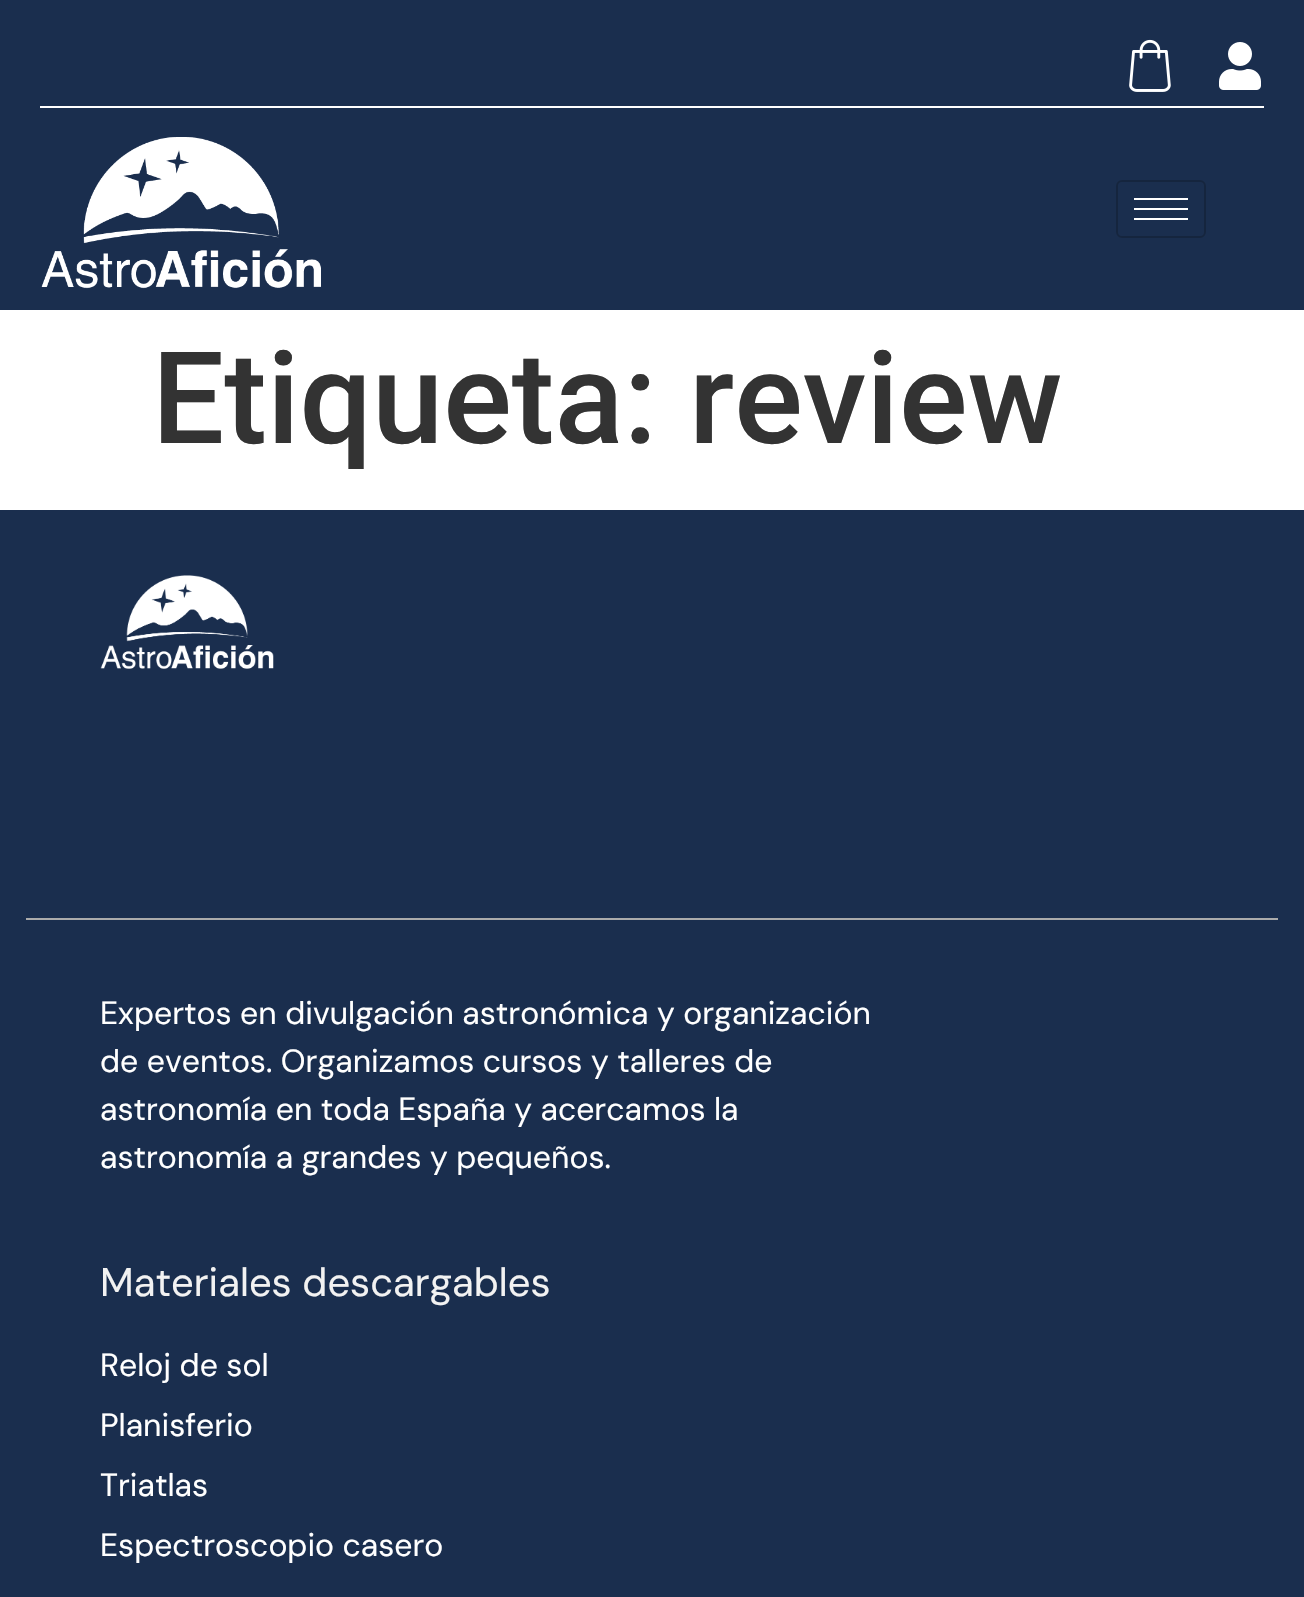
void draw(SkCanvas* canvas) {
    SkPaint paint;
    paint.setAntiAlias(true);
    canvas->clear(0xFFFFFFFF);
    paint.setColor(0xFF1A2E4E);
    canvas->drawRect(SkRect::MakeXYWH(0, 0, 1304, 310), paint);
    canvas->drawImageRect(SkImages::DeferredFromEncodedData(SkData::MakeFromFileName("img1.png")), SkRect::MakeXYWH(1129, 39, 42, 53), SkSamplingOptions());
    canvas->drawImageRect(SkImages::DeferredFromEncodedData(SkData::MakeFromFileName("img2.png")), SkRect::MakeXYWH(1219, 42, 42, 48), SkSamplingOptions());
    paint.setColor(0xFFFFFFFF);
    canvas->drawRect(SkRect::MakeXYWH(40, 106, 1224, 2), paint);
    canvas->drawImageRect(SkImages::DeferredFromEncodedData(SkData::MakeFromFileName("img3.png")), SkRect::MakeXYWH(41, 137, 280, 152), SkSamplingOptions());
    paint.setStyle(SkPaint::kStroke_Style);
    paint.setStrokeWidth(2);
    paint.setColor(0xFF15253E);
    canvas->drawRoundRect(SkRect::MakeXYWH(1117, 181, 88, 56), 5, 5, paint);
    paint.setStyle(SkPaint::kFill_Style);
    paint.setColor(0xFFFFFFFF);
    canvas->drawRect(SkRect::MakeXYWH(1134, 198, 54, 2), paint);
    canvas->drawRect(SkRect::MakeXYWH(1134, 208, 54, 2), paint);
    canvas->drawRect(SkRect::MakeXYWH(1134, 218, 54, 2), paint);
    SkFont font1(fontMgr->matchFamilyStyle("Roboto", SkFontStyle(500, SkFontStyle::kNormal_Width, SkFontStyle::kUpright_Slant)), 128);
    font1.setSubpixel(true);
    paint.setColor(0xFF333333);
    canvas->drawString("Etiqueta: review", 152, 443, font1, paint);
    paint.setColor(0xFF1A2E4E);
    canvas->drawRect(SkRect::MakeXYWH(0, 510, 1304, 1087), paint);
    canvas->drawImageRect(SkImages::DeferredFromEncodedData(SkData::MakeFromFileName("img4.png")), SkRect::MakeXYWH(100, 575, 174, 94), SkSamplingOptions());
    paint.setColor(0xFFABABAB);
    canvas->drawRect(SkRect::MakeXYWH(26, 918, 1252, 2), paint);
    SkFont font2(fontMgr->matchFamilyStyle("DM Sans", SkFontStyle::Normal()), 32);
    font2.setSubpixel(true);
    paint.setColor(0xFFFFFFFF);
    canvas->drawString("Expertos en divulgación astronómica y organización", 100, 1024, font2, paint);
    canvas->drawString("de eventos. Organizamos cursos y talleres de", 100, 1072, font2, paint);
    canvas->drawString("astronomía en toda España y acercamos la", 100, 1120, font2, paint);
    canvas->drawString("astronomía a grandes y pequeños.", 100, 1168, font2, paint);
    SkFont font3(fontMgr->matchFamilyStyle("DM Sans", SkFontStyle::Normal()), 40);
    font3.setSubpixel(true);
    paint.setColor(0xFFF2F2F2);
    canvas->drawString("Materiales descargables", 100, 1296, font3, paint);
    paint.setColor(0xFFFFFFFF);
    canvas->drawString("Reloj de sol", 100, 1376, font2, paint);
    canvas->drawString("Planisferio", 100, 1436, font2, paint);
    canvas->drawString("Triatlas", 100, 1496, font2, paint);
    canvas->drawString("Espectroscopio casero", 100, 1556, font2, paint);
}
